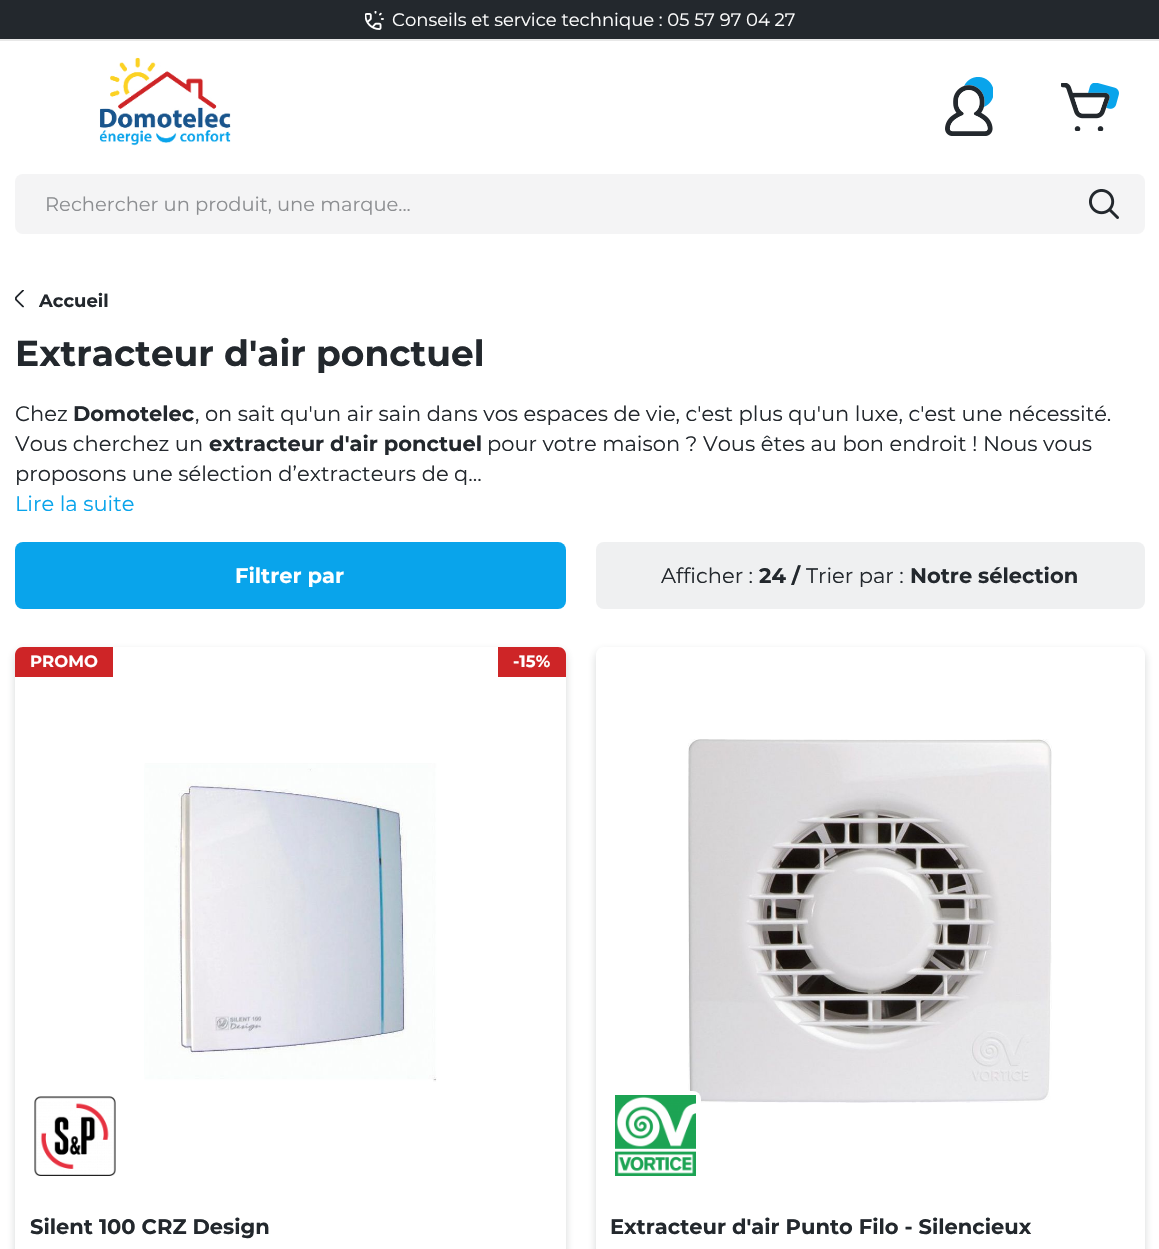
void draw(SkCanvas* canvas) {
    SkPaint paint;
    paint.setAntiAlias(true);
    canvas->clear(0xFFFFFFFF);
    paint.setColor(0xFF23282D);
    canvas->drawRect(SkRect::MakeXYWH(0, 0, 1159, 39), paint);
    canvas->drawImageRect(SkImages::DeferredFromEncodedData(SkData::MakeFromFileName("img1.png")), SkRect::MakeXYWH(365, 11, 19, 19), SkSamplingOptions());
    SkFont font1(fontMgr->matchFamilyStyle("Montserrat", SkFontStyle::Normal()), 18);
    font1.setSubpixel(true);
    paint.setColor(0xFFFFFFFF);
    canvas->drawString("Conseils et service technique : 05 57 97 04 27", 392, 26, font1, paint);
    paint.setColor(0xFFE8E8E8);
    canvas->drawRect(SkRect::MakeXYWH(0, 39, 1159, 2), paint);
    canvas->drawImageRect(SkImages::DeferredFromEncodedData(SkData::MakeFromFileName("img2.png")), SkRect::MakeXYWH(99, 57, 132, 89), SkSamplingOptions());
    canvas->drawImageRect(SkImages::DeferredFromEncodedData(SkData::MakeFromFileName("img3.png")), SkRect::MakeXYWH(945, 77, 48, 59), SkSamplingOptions());
    canvas->drawImageRect(SkImages::DeferredFromEncodedData(SkData::MakeFromFileName("img4.png")), SkRect::MakeXYWH(1061, 83, 58, 48), SkSamplingOptions());
    paint.setColor(0xFFF4F4F5);
    canvas->drawRoundRect(SkRect::MakeXYWH(15, 174, 1130, 60), 8, 8, paint);
    SkFont font2(fontMgr->matchFamilyStyle("Montserrat", SkFontStyle::Normal()), 19.5f);
    font2.setSubpixel(true);
    paint.setColor(0xFF8C8E91);
    canvas->drawString("Rechercher un produit, une marque...", 45, 211, font2, paint);
    canvas->drawImageRect(SkImages::DeferredFromEncodedData(SkData::MakeFromFileName("img5.png")), SkRect::MakeXYWH(1089, 189, 30, 30), SkSamplingOptions());
    canvas->drawImageRect(SkImages::DeferredFromEncodedData(SkData::MakeFromFileName("img6.png")), SkRect::MakeXYWH(15, 290, 9, 18), SkSamplingOptions());
    SkFont font3(fontMgr->matchFamilyStyle("Montserrat", SkFontStyle::Bold()), 18);
    font3.setSubpixel(true);
    paint.setColor(0xFF23282D);
    canvas->drawString("Accueil", 39, 307, font3, paint);
    SkFont font4(fontMgr->matchFamilyStyle("Montserrat", SkFontStyle::Bold()), 36);
    font4.setSubpixel(true);
    canvas->drawString("Extracteur d'air ponctuel", 15, 366, font4, paint);
    SkFont font5(fontMgr->matchFamilyStyle("Montserrat", SkFontStyle::Normal()), 21);
    font5.setSubpixel(true);
    canvas->drawString("Chez", 15, 421, font5, paint);
    SkFont font6(fontMgr->matchFamilyStyle("Montserrat", SkFontStyle::Bold()), 21);
    font6.setSubpixel(true);
    canvas->drawString("Domotelec", 73, 421, font6, paint);
    canvas->drawString(", on sait qu'un air sain dans vos espaces de vie, c'est plus qu'un luxe, c'est une nécessité.", 195, 421, font5, paint);
    canvas->drawString("Vous cherchez un", 15, 451, font5, paint);
    canvas->drawString("extracteur d'air ponctuel", 209, 451, font6, paint);
    canvas->drawString("pour votre maison ? Vous êtes au bon endroit ! Nous vous", 487, 451, font5, paint);
    canvas->drawString("proposons une sélection d’extracteurs de q...", 15, 481, font5, paint);
    paint.setColor(0xFF09A4EB);
    canvas->drawString("Lire la suite", 15, 511, font5, paint);
    canvas->drawRoundRect(SkRect::MakeXYWH(15, 542, 551, 67), 8, 8, paint);
    paint.setColor(0xFFFFFFFF);
    canvas->drawString("Filtrer par", 235, 583, font6, paint);
    paint.setColor(0xFFEFF0F1);
    canvas->drawRoundRect(SkRect::MakeXYWH(596, 542, 549, 67), 8, 8, paint);
    paint.setColor(0xFF23282D);
    canvas->drawString("Afficher :", 661, 583, font5, paint);
    canvas->drawString("24 /", 759, 583, font6, paint);
    canvas->drawString("Trier par :", 806, 583, font5, paint);
    canvas->drawString("Notre sélection", 910, 583, font6, paint);
    canvas->save();
    canvas->clipPath(SkPathBuilder(SkPathFillType::kEvenOdd).moveTo(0, 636).lineTo(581, 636).lineTo(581, 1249).lineTo(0, 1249).close().moveTo(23, 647).lineTo(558, 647).cubicTo(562.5f, 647, 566, 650.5f, 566, 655).lineTo(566, 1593).cubicTo(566, 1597.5f, 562.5f, 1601, 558, 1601).lineTo(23, 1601).cubicTo(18.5f, 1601, 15, 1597.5f, 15, 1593).lineTo(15, 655).cubicTo(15, 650.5f, 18.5f, 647, 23, 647).close().detach(), true);
    paint.setColor(0x33333A41);
    paint.setMaskFilter(SkMaskFilter::MakeBlur(kNormal_SkBlurStyle, 4.5f));
    canvas->drawRoundRect(SkRect::MakeXYWH(15, 651, 551, 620), 8, 8, paint);
    paint.setMaskFilter(nullptr);
    canvas->restore();
    paint.setColor(0xFFCE2527);
    canvas->drawPath(SkPathBuilder().moveTo(23, 647).lineTo(113, 647).lineTo(113, 677).lineTo(15, 677).lineTo(15, 655).cubicTo(15, 650.5f, 18.5f, 647, 23, 647).close().detach(), paint);
    SkFont font7(fontMgr->matchFamilyStyle("Montserrat", SkFontStyle::Bold()), 16.5f);
    font7.setSubpixel(true);
    paint.setColor(0xFFFFFFFF);
    canvas->drawString("PROMO", 30, 667, font7, paint);
    paint.setColor(0xFFCE2527);
    canvas->drawPath(SkPathBuilder().moveTo(498, 647).lineTo(558, 647).cubicTo(562.5f, 647, 566, 650.5f, 566, 655).lineTo(566, 677).lineTo(498, 677).close().detach(), paint);
    paint.setColor(0xFFFFFFFF);
    canvas->drawString("-15%", 513, 667, font7, paint);
    paint.setColor(0xFF23282D);
    canvas->drawString("Silent 100 CRZ Design", 30, 1234, font6, paint);
    canvas->drawImageRect(SkImages::DeferredFromEncodedData(SkData::MakeFromFileName("img7.png")), SkRect::MakeXYWH(144, 763, 293, 319), SkSamplingOptions());
    canvas->drawImageRect(SkImages::DeferredFromEncodedData(SkData::MakeFromFileName("img8.png")), SkRect::MakeXYWH(34, 1096, 82, 80), SkSamplingOptions());
    canvas->save();
    canvas->clipPath(SkPathBuilder(SkPathFillType::kEvenOdd).moveTo(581, 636).lineTo(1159, 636).lineTo(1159, 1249).lineTo(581, 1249).close().moveTo(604, 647).lineTo(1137, 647).cubicTo(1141.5f, 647, 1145, 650.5f, 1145, 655).lineTo(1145, 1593).cubicTo(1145, 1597.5f, 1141.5f, 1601, 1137, 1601).lineTo(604, 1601).cubicTo(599.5f, 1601, 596, 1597.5f, 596, 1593).lineTo(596, 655).cubicTo(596, 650.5f, 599.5f, 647, 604, 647).close().detach(), true);
    paint.setColor(0x33333A41);
    paint.setMaskFilter(SkMaskFilter::MakeBlur(kNormal_SkBlurStyle, 4.5f));
    canvas->drawRoundRect(SkRect::MakeXYWH(596, 651, 549, 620), 8, 8, paint);
    paint.setMaskFilter(nullptr);
    canvas->restore();
    canvas->drawImageRect(SkImages::DeferredFromEncodedData(SkData::MakeFromFileName("img9.png")), SkRect::MakeXYWH(688, 739, 364, 364), SkSamplingOptions());
    paint.setColor(0xFFFFFFFF);
    canvas->drawRoundRect(SkRect::MakeXYWH(611, 1091, 90, 90), 8, 8, paint);
    canvas->drawImageRect(SkImages::DeferredFromEncodedData(SkData::MakeFromFileName("img10.png")), SkRect::MakeXYWH(615, 1095, 81, 81), SkSamplingOptions());
    paint.setColor(0xFF23282D);
    canvas->drawString("Extracteur d'air Punto Filo - Silencieux", 610, 1234, font6, paint);
}
